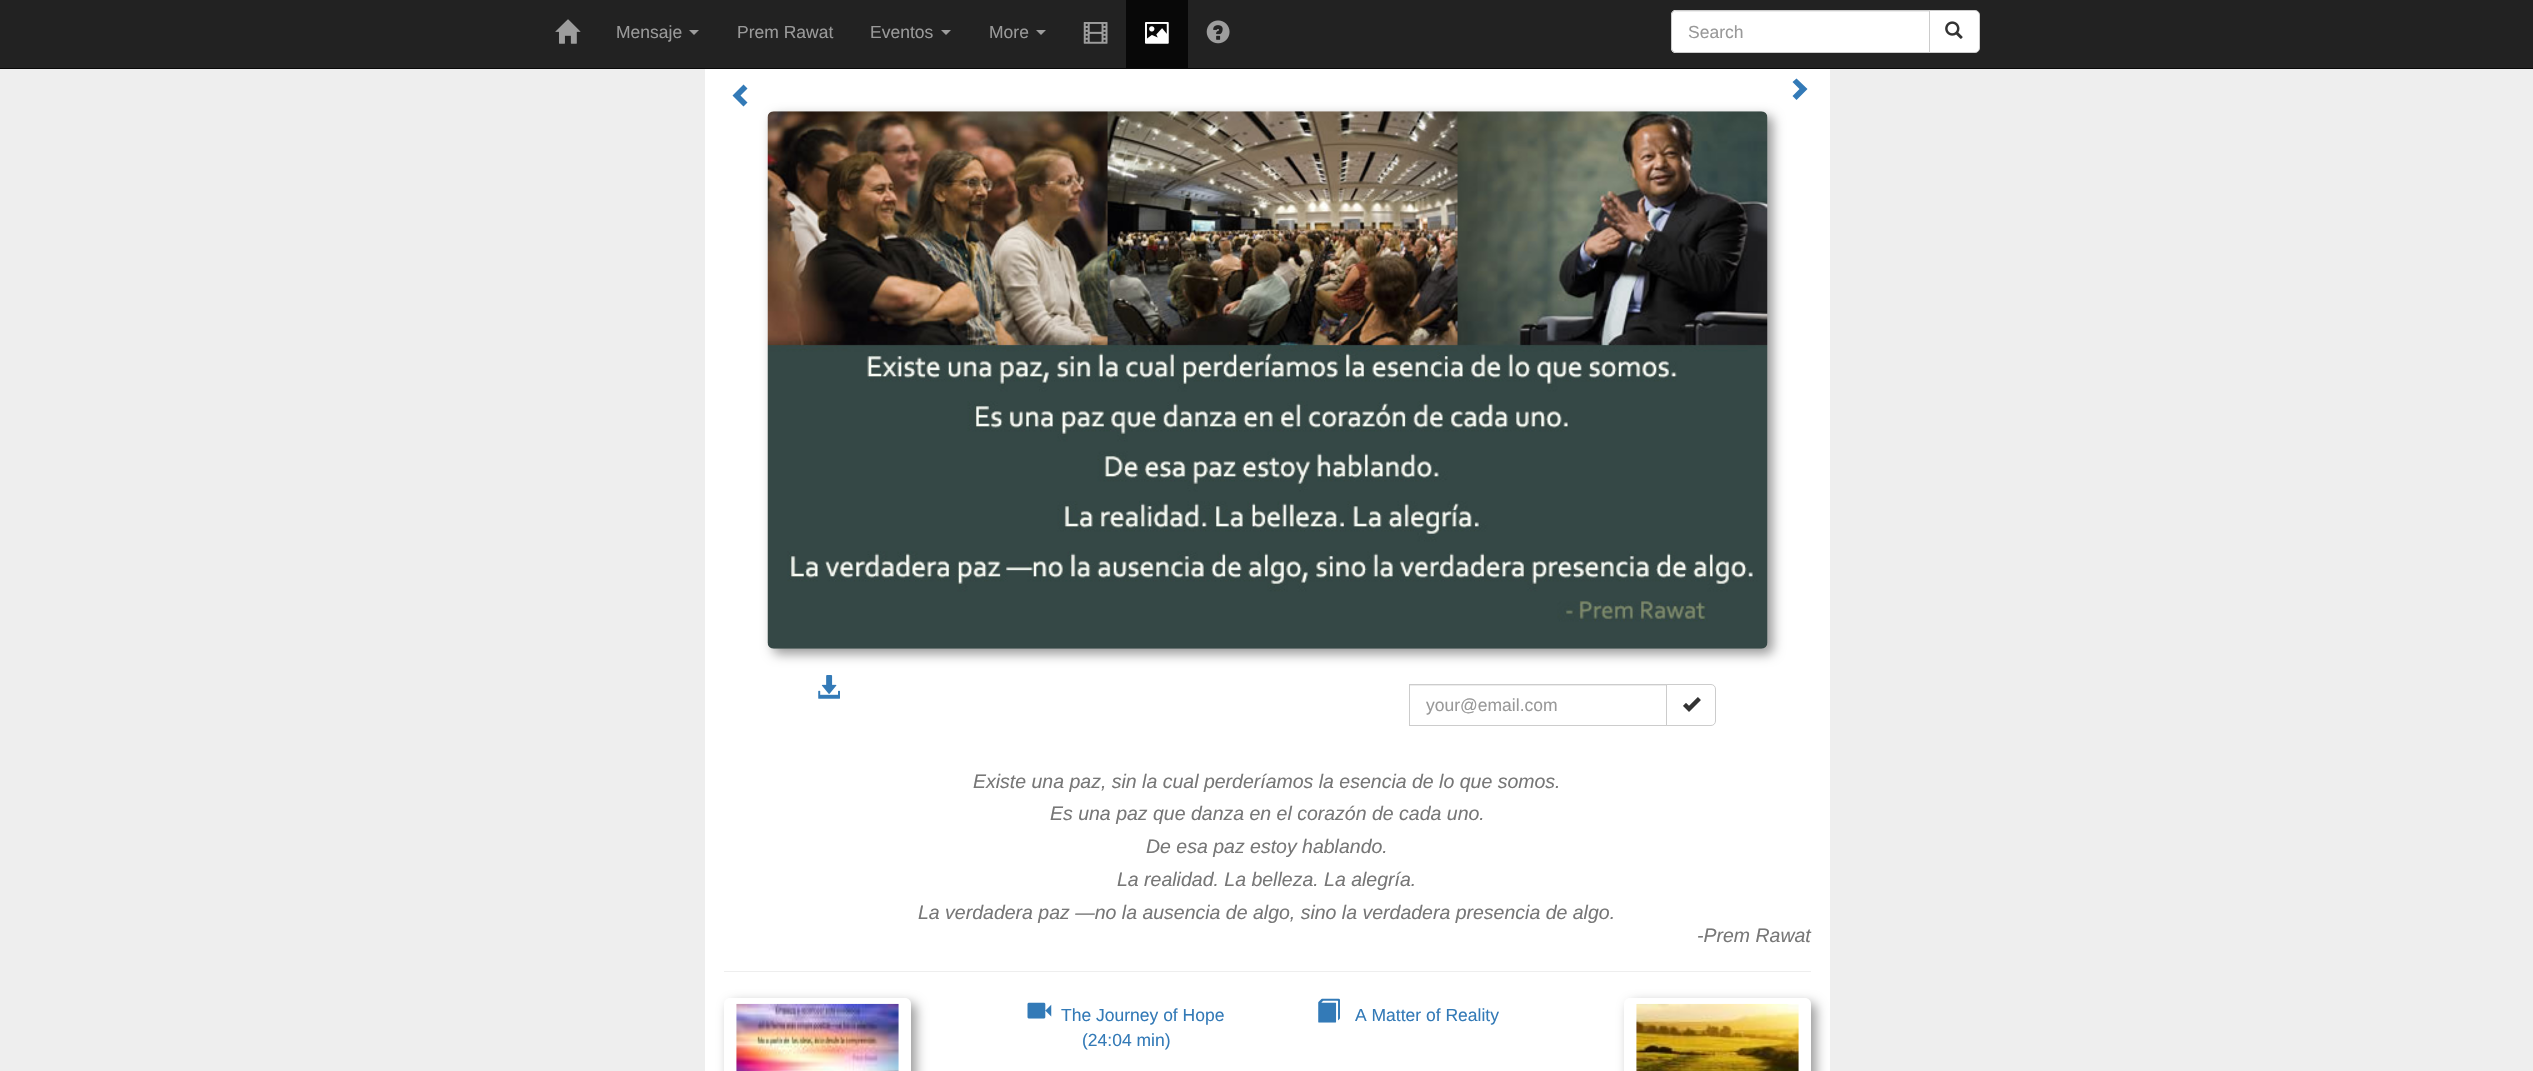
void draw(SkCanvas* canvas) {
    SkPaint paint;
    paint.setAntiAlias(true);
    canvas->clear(0xFFEEEEEE);
    paint.setColor(0xFF222222);
    canvas->drawRect(SkRect::MakeXYWH(0, 0, 2533, 68), paint);
    paint.setColor(0xFF080808);
    canvas->drawRect(SkRect::MakeXYWH(0, 68, 2533, 1), paint);
    canvas->drawImageRect(SkImages::DeferredFromEncodedData(SkData::MakeFromFileName("img1.png")), SkRect::MakeXYWH(555, 19, 26, 25), SkSamplingOptions());
    SkFont font1(fontMgr->matchFamilyStyle("Liberation Sans", SkFontStyle::Normal()), 17.5f);
    font1.setSubpixel(true);
    paint.setColor(0xFF999999);
    canvas->drawString("Mensaje", 616, 38, font1, paint);
    paint.setColor(0xFF9D9D9D);
    canvas->drawPath(SkPathBuilder().moveTo(689, 30).lineTo(699, 30).lineTo(694, 35).close().detach(), paint);
    paint.setColor(0xFF999999);
    canvas->drawString("Prem Rawat", 737, 38, font1, paint);
    canvas->drawString("Eventos", 870, 38, font1, paint);
    paint.setColor(0xFF9D9D9D);
    canvas->drawPath(SkPathBuilder().moveTo(941, 30).lineTo(951, 30).lineTo(946, 35).close().detach(), paint);
    paint.setColor(0xFF999999);
    canvas->drawString("More", 989, 38, font1, paint);
    paint.setColor(0xFF9D9D9D);
    canvas->drawPath(SkPathBuilder().moveTo(1036, 30).lineTo(1046, 30).lineTo(1041, 35).close().detach(), paint);
    canvas->drawImageRect(SkImages::DeferredFromEncodedData(SkData::MakeFromFileName("img2.png")), SkRect::MakeXYWH(1083, 22, 25, 22), SkSamplingOptions());
    paint.setColor(0xFF080808);
    canvas->drawRect(SkRect::MakeXYWH(1126, 0, 62, 68), paint);
    canvas->drawImageRect(SkImages::DeferredFromEncodedData(SkData::MakeFromFileName("img3.png")), SkRect::MakeXYWH(1145, 22, 24, 22), SkSamplingOptions());
    canvas->drawImageRect(SkImages::DeferredFromEncodedData(SkData::MakeFromFileName("img4.png")), SkRect::MakeXYWH(1206, 20, 24, 24), SkSamplingOptions());
    paint.setColor(0xFFFFFFFF);
    canvas->drawPath(SkPathBuilder().moveTo(1676, 10).lineTo(1930, 10).lineTo(1930, 53).lineTo(1676, 53).cubicTo(1673, 53, 1671, 51, 1671, 48).lineTo(1671, 15).cubicTo(1671, 12, 1673, 10, 1676, 10).close().detach(), paint);
    paint.setColor(0xFFECECEC);
    canvas->drawPath(SkPathBuilder().moveTo(1676, 12).lineTo(1929, 12).lineTo(1929, 11).lineTo(1677, 11).lineTo(1675, 12).lineTo(1674, 13).close().detach(), paint);
    paint.setStyle(SkPaint::kStroke_Style);
    paint.setStrokeWidth(1);
    paint.setColor(0xFFCCCCCC);
    canvas->drawPath(SkPathBuilder().moveTo(1676, 10.5f).lineTo(1929.5f, 10.5f).lineTo(1929.5f, 52.5f).lineTo(1676, 52.5f).cubicTo(1673.5f, 52.5f, 1671.5f, 50.5f, 1671.5f, 48).lineTo(1671.5f, 15).cubicTo(1671.5f, 12.5f, 1673.5f, 10.5f, 1676, 10.5f).close().detach(), paint);
    paint.setStyle(SkPaint::kFill_Style);
    paint.setColor(0xFF999999);
    canvas->drawString("Search", 1688, 38, font1, paint);
    paint.setColor(0xFFFFFFFF);
    canvas->drawPath(SkPathBuilder().moveTo(1929.5f, 10.5f).lineTo(1975, 10.5f).cubicTo(1977.5f, 10.5f, 1979.5f, 12.5f, 1979.5f, 15).lineTo(1979.5f, 48).cubicTo(1979.5f, 50.5f, 1977.5f, 52.5f, 1975, 52.5f).lineTo(1929.5f, 52.5f).close().detach(), paint);
    paint.setStyle(SkPaint::kStroke_Style);
    paint.setColor(0xFFCCCCCC);
    canvas->drawPath(SkPathBuilder().moveTo(1929.5f, 10.5f).lineTo(1975, 10.5f).cubicTo(1977.5f, 10.5f, 1979.5f, 12.5f, 1979.5f, 15).lineTo(1979.5f, 48).cubicTo(1979.5f, 50.5f, 1977.5f, 52.5f, 1975, 52.5f).lineTo(1929.5f, 52.5f).close().detach(), paint);
    canvas->drawImageRect(SkImages::DeferredFromEncodedData(SkData::MakeFromFileName("img5.png")), SkRect::MakeXYWH(1945, 21, 18, 18), SkSamplingOptions());
    paint.setStyle(SkPaint::kFill_Style);
    paint.setColor(0xFFFFFFFF);
    canvas->drawRect(SkRect::MakeXYWH(705, 69, 1125, 1002), paint);
    paint.setColor(0xFF337AB7);
    canvas->drawPath(SkPathBuilder().moveTo(747.5f, 88.5f).lineTo(740.5f, 95.5f).lineTo(747.5f, 102.5f).lineTo(743.5f, 106.5f).lineTo(732.5f, 95.5f).lineTo(743.5f, 84.5f).close().detach(), paint);
    canvas->drawPath(SkPathBuilder().moveTo(1807.5f, 89).lineTo(1796.5f, 100).lineTo(1792.5f, 96).lineTo(1799.5f, 89).lineTo(1792.5f, 82).lineTo(1796.5f, 78.5f).close().detach(), paint);
    paint.setColor(0xFF999999);
    paint.setMaskFilter(SkMaskFilter::MakeBlur(kNormal_SkBlurStyle, 6));
    canvas->drawRoundRect(SkRect::MakeXYWH(773, 116, 1000, 538), 6, 6, paint);
    paint.setMaskFilter(nullptr);
    canvas->drawImageRect(SkImages::DeferredFromEncodedData(SkData::MakeFromFileName("img6.png")), SkRect::MakeXYWH(767, 111, 1001, 538), SkSamplingOptions());
    canvas->drawImageRect(SkImages::DeferredFromEncodedData(SkData::MakeFromFileName("img7.png")), SkRect::MakeXYWH(818, 675, 22, 24), SkSamplingOptions());
    paint.setColor(0xFFECECEC);
    canvas->drawRect(SkRect::MakeXYWH(1410, 685, 256, 1), paint);
    paint.setStyle(SkPaint::kStroke_Style);
    paint.setColor(0xFFCCCCCC);
    canvas->drawRect(SkRect::MakeXYWH(1409.5f, 684.5f, 258, 41), paint);
    paint.setStyle(SkPaint::kFill_Style);
    paint.setColor(0xFF999999);
    canvas->drawString("your@email.com", 1426, 711, font1, paint);
    paint.setColor(0xFFFFFFFF);
    canvas->drawPath(SkPathBuilder().moveTo(1666.5f, 684.5f).lineTo(1711, 684.5f).cubicTo(1713.5f, 684.5f, 1715.5f, 686.5f, 1715.5f, 689).lineTo(1715.5f, 721).cubicTo(1715.5f, 723.5f, 1713.5f, 725.5f, 1711, 725.5f).lineTo(1666.5f, 725.5f).close().detach(), paint);
    paint.setStyle(SkPaint::kStroke_Style);
    paint.setColor(0xFFCCCCCC);
    canvas->drawPath(SkPathBuilder().moveTo(1666.5f, 684.5f).lineTo(1711, 684.5f).cubicTo(1713.5f, 684.5f, 1715.5f, 686.5f, 1715.5f, 689).lineTo(1715.5f, 721).cubicTo(1715.5f, 723.5f, 1713.5f, 725.5f, 1711, 725.5f).lineTo(1666.5f, 725.5f).close().detach(), paint);
    canvas->drawImageRect(SkImages::DeferredFromEncodedData(SkData::MakeFromFileName("img8.png")), SkRect::MakeXYWH(1683, 697, 18, 15), SkSamplingOptions());
    SkFont font2(fontMgr->matchFamilyStyle("Liberation Sans", SkFontStyle::Italic()), 19.5f);
    font2.setSubpixel(true);
    paint.setStyle(SkPaint::kFill_Style);
    paint.setColor(0xFF777777);
    canvas->drawString("Existe una paz, sin la cual perderíamos la esencia de lo que somos.", 973, 788, font2, paint);
    canvas->drawString("Es una paz que danza en el corazón de cada uno.", 1050, 820, font2, paint);
    canvas->drawString("De esa paz estoy hablando.", 1146, 853, font2, paint);
    canvas->drawString("La realidad. La belleza. La alegría.", 1117, 886, font2, paint);
    canvas->drawString("La verdadera paz —no la ausencia de algo, sino la verdadera presencia de algo.", 918, 919, font2, paint);
    canvas->drawString("-Prem Rawat", 1697, 942, font2, paint);
    paint.setColor(0xFFEEEEEE);
    canvas->drawRect(SkRect::MakeXYWH(724, 971, 1087, 1), paint);
    canvas->save();
    canvas->clipPath(SkPathBuilder(SkPathFillType::kEvenOdd).moveTo(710, 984).lineTo(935, 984).lineTo(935, 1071).lineTo(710, 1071).close().moveTo(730, 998).lineTo(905, 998).cubicTo(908.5f, 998, 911, 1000.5f, 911, 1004).lineTo(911, 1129).cubicTo(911, 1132.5f, 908.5f, 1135, 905, 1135).lineTo(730, 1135).cubicTo(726.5f, 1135, 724, 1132.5f, 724, 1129).lineTo(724, 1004).cubicTo(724, 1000.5f, 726.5f, 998, 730, 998).close().detach(), true);
    paint.setColor(0xFF999999);
    paint.setMaskFilter(SkMaskFilter::MakeBlur(kNormal_SkBlurStyle, 6));
    canvas->drawRoundRect(SkRect::MakeXYWH(729, 1003, 187, 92), 6, 6, paint);
    paint.setMaskFilter(nullptr);
    canvas->restore();
    canvas->drawImageRect(SkImages::DeferredFromEncodedData(SkData::MakeFromFileName("img9.png")), SkRect::MakeXYWH(736, 1003, 163, 68), SkSamplingOptions());
    canvas->drawImageRect(SkImages::DeferredFromEncodedData(SkData::MakeFromFileName("img10.png")), SkRect::MakeXYWH(1027, 1002, 25, 17), SkSamplingOptions());
    paint.setColor(0xFF337AB7);
    canvas->drawString("The Journey of Hope", 1061, 1021, font1, paint);
    canvas->drawString("(24:04 min)", 1082, 1046, font1, paint);
    canvas->drawImageRect(SkImages::DeferredFromEncodedData(SkData::MakeFromFileName("img11.png")), SkRect::MakeXYWH(1318, 998, 22, 25), SkSamplingOptions());
    canvas->drawString("A Matter of Reality", 1355, 1021, font1, paint);
    canvas->save();
    canvas->clipPath(SkPathBuilder(SkPathFillType::kEvenOdd).moveTo(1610, 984).lineTo(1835, 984).lineTo(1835, 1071).lineTo(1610, 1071).close().moveTo(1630, 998).lineTo(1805, 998).cubicTo(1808.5f, 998, 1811, 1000.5f, 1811, 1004).lineTo(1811, 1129).cubicTo(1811, 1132.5f, 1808.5f, 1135, 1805, 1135).lineTo(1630, 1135).cubicTo(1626.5f, 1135, 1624, 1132.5f, 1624, 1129).lineTo(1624, 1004).cubicTo(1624, 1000.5f, 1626.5f, 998, 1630, 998).close().detach(), true);
    paint.setColor(0xFF999999);
    paint.setMaskFilter(SkMaskFilter::MakeBlur(kNormal_SkBlurStyle, 6));
    canvas->drawRoundRect(SkRect::MakeXYWH(1629, 1003, 187, 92), 6, 6, paint);
    paint.setMaskFilter(nullptr);
    canvas->restore();
    canvas->drawImageRect(SkImages::DeferredFromEncodedData(SkData::MakeFromFileName("img12.png")), SkRect::MakeXYWH(1636, 1003, 163, 68), SkSamplingOptions());
}
